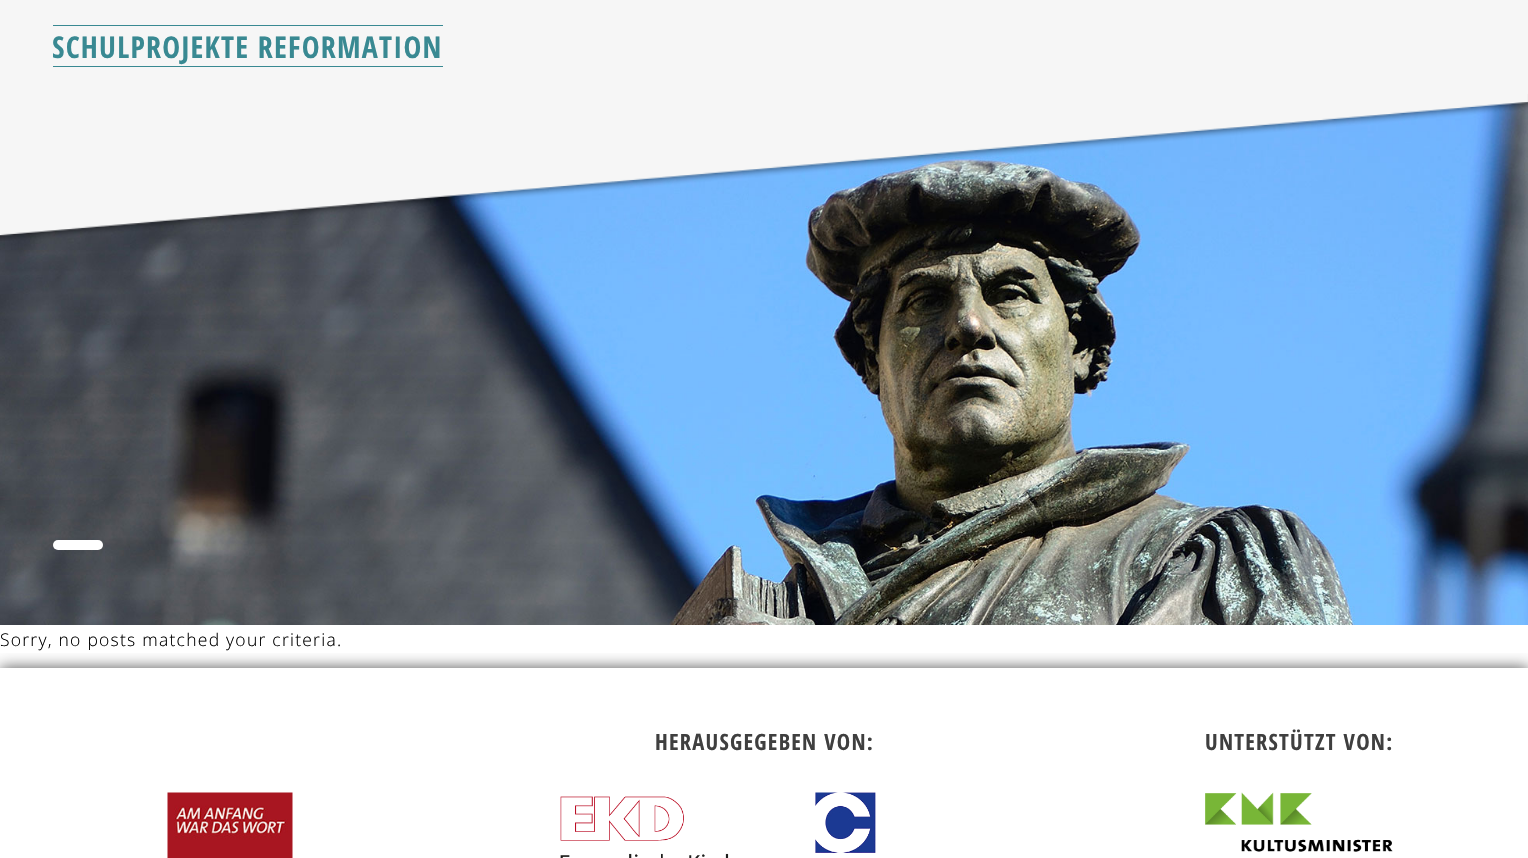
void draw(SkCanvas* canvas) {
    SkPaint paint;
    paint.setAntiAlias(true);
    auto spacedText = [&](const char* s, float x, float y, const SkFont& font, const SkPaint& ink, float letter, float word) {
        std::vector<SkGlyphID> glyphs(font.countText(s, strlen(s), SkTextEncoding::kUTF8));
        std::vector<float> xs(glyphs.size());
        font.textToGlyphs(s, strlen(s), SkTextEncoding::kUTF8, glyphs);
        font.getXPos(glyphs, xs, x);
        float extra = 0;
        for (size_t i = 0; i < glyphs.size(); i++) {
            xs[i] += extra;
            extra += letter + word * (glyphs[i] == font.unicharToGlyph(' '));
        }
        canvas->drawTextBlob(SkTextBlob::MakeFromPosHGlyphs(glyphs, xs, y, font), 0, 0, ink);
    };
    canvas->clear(0xFFFFFFFF);
    paint.setColor(0xFFF6F6F6);
    canvas->drawRect(SkRect::MakeXYWH(0, 0, 1528, 94), paint);
    paint.setColor(0xFF398992);
    canvas->drawRect(SkRect::MakeXYWH(53, 25, 390, 1), paint);
    canvas->drawRect(SkRect::MakeXYWH(53, 66, 390, 1), paint);
    SkFont font1(fontMgr->matchFamilyStyle("Open Sans Condensed", SkFontStyle::Bold()), 30);
    font1.setSubpixel(true);
    spacedText("SCHULPROJEKTE REFORMATION", 52, 58, font1, paint, 1.25f, 0);
    canvas->drawImageRect(SkImages::DeferredFromEncodedData(SkData::MakeFromFileName("img2.png")), SkRect::MakeXYWH(0, 94, 1528, 531), SkSamplingOptions());
    canvas->drawImageRect(SkImages::DeferredFromEncodedData(SkData::MakeFromFileName("img1.png")), SkRect::MakeXYWH(0, 94, 1528, 147), SkSamplingOptions());
    paint.setColor(0xFFFFFFFF);
    canvas->drawRoundRect(SkRect::MakeXYWH(53, 540, 50, 10), 5, 5, paint);
    SkFont font2(fontMgr->matchFamilyStyle("Open Sans", SkFontStyle(300, SkFontStyle::kNormal_Width, SkFontStyle::kUpright_Slant)), 17.5f);
    font2.setSubpixel(true);
    paint.setColor(0xFF000000);
    spacedText("Sorry, no posts matched your criteria.", 0, 646, font2, paint, 1.25f, 0);
    canvas->save();
    canvas->clipRect(SkRect::MakeXYWH(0, 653, 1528, 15));
    paint.setColor(0xFF525252);
    paint.setMaskFilter(SkMaskFilter::MakeBlur(kNormal_SkBlurStyle, 7.5f));
    canvas->drawRect(SkRect::MakeXYWH(0, 668, 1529, 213), paint);
    paint.setMaskFilter(nullptr);
    canvas->restore();
    SkFont font3(fontMgr->matchFamilyStyle("Open Sans Condensed", SkFontStyle::Bold()), 22.5f);
    font3.setSubpixel(true);
    paint.setColor(0xFF3F3F3F);
    spacedText("HERAUSGEGEBEN VON:", 655, 750, font3, paint, 1.25f, 0);
    canvas->drawImageRect(SkImages::DeferredFromEncodedData(SkData::MakeFromFileName("img3.png")), SkRect::MakeXYWH(560, 796, 169, 62), SkSamplingOptions());
    canvas->drawImageRect(SkImages::DeferredFromEncodedData(SkData::MakeFromFileName("img4.png")), SkRect::MakeXYWH(815, 792, 61, 61), SkSamplingOptions());
    spacedText("UNTERSTÜTZT VON:", 1205, 750, font3, paint, 1.25f, 0);
    canvas->drawImageRect(SkImages::DeferredFromEncodedData(SkData::MakeFromFileName("img5.png")), SkRect::MakeXYWH(1205, 792, 188, 60), SkSamplingOptions());
    canvas->drawImageRect(SkImages::DeferredFromEncodedData(SkData::MakeFromFileName("img6.png")), SkRect::MakeXYWH(167, 792, 126, 66), SkSamplingOptions());
}
